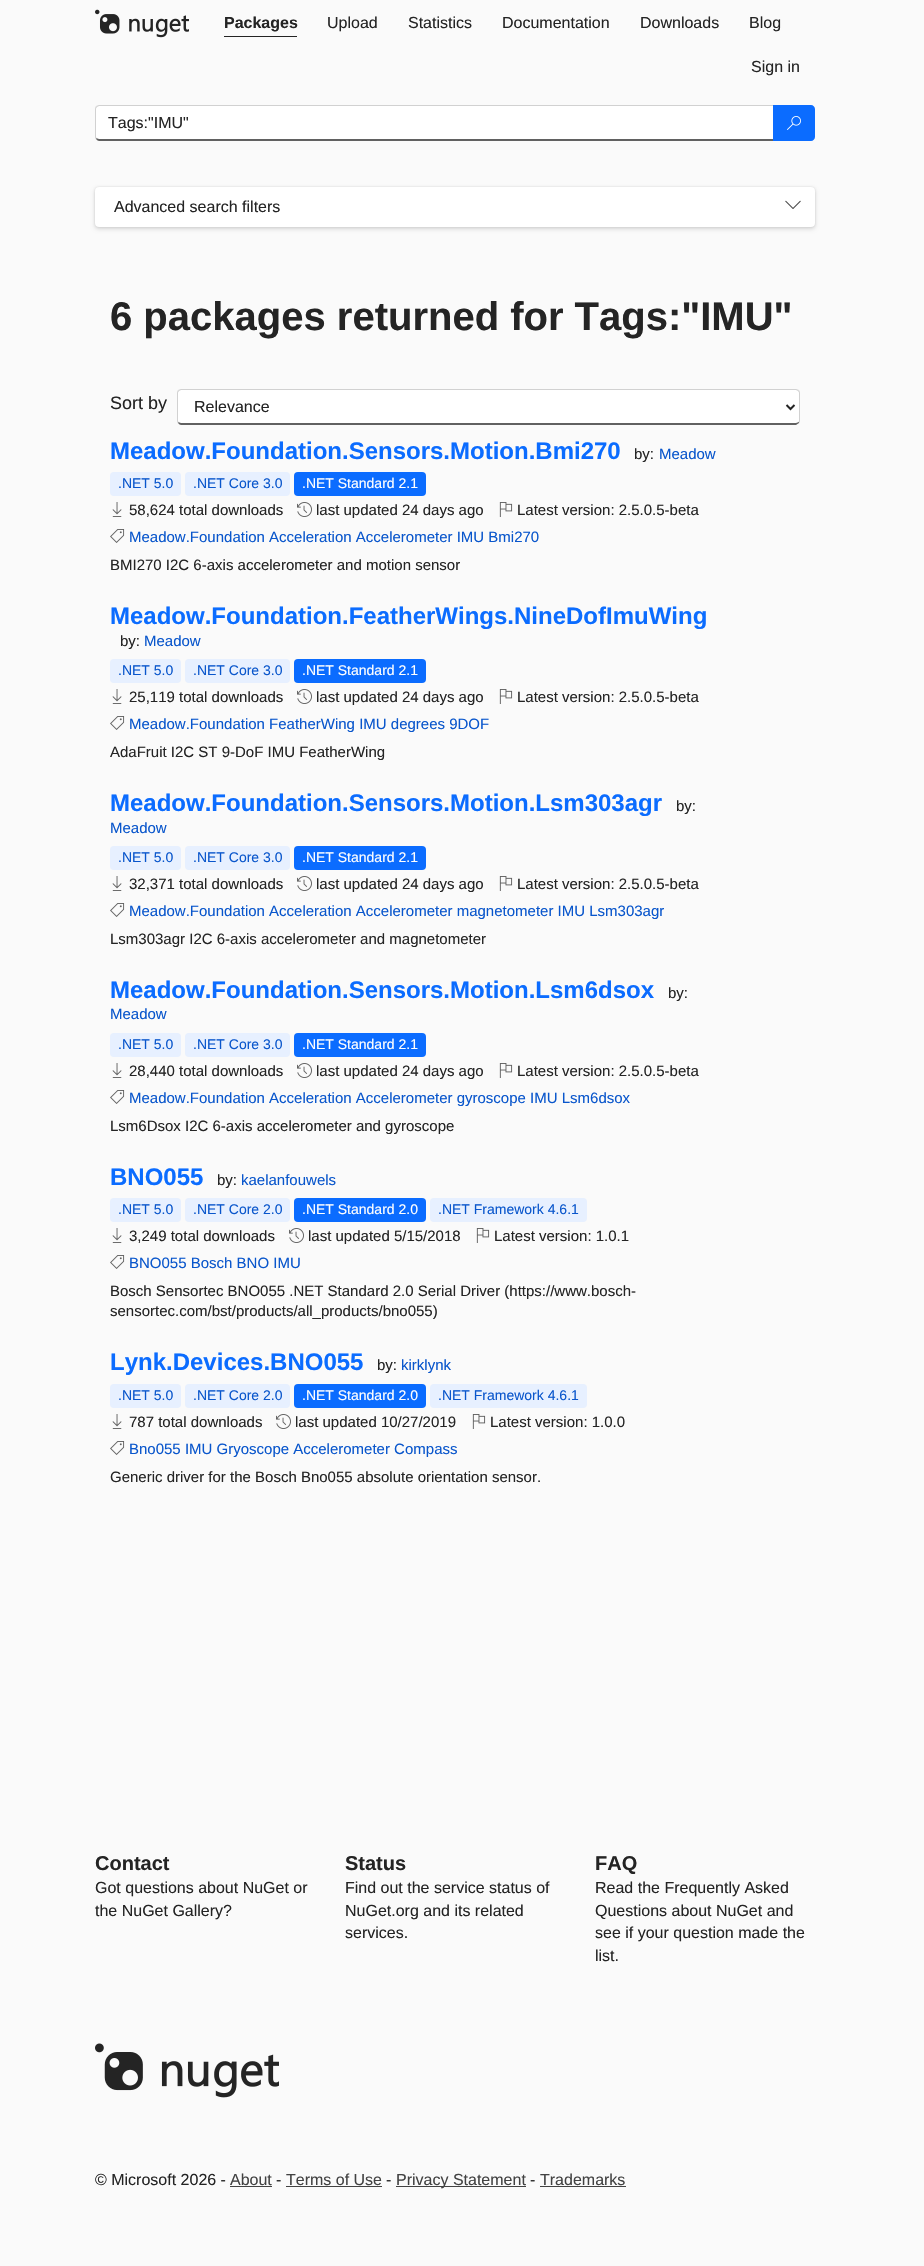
void draw(SkCanvas* canvas) {
    SkPaint paint;
    paint.setAntiAlias(true);
    canvas->clear(0xFFFAFAFA);
    canvas->drawImageRect(SkImages::DeferredFromEncodedData(SkData::MakeFromFileName("img1.png")), SkRect::MakeXYWH(95, 9, 94, 29), SkSamplingOptions());
    SkFont font1(fontMgr->matchFamilyStyle("Liberation Sans", SkFontStyle::Bold()), 16);
    font1.setSubpixel(true);
    paint.setColor(0xFF242424);
    canvas->drawString("Packages", 224, 28, font1, paint);
    canvas->drawRect(SkRect::MakeXYWH(224, 36, 73, 1), paint);
    SkFont font2(fontMgr->matchFamilyStyle("Liberation Sans", SkFontStyle::Normal()), 16);
    font2.setSubpixel(true);
    canvas->drawString("Upload", 327, 28, font2, paint);
    canvas->drawString("Statistics", 408, 28, font2, paint);
    canvas->drawString("Documentation", 502, 28, font2, paint);
    canvas->drawString("Downloads", 640, 28, font2, paint);
    canvas->drawString("Blog", 749, 28, font2, paint);
    canvas->drawString("Sign in", 751, 72, font2, paint);
    paint.setColor(0xFFFFFFFF);
    canvas->drawPath(SkPathBuilder().moveTo(99, 106).lineTo(773, 106).lineTo(773, 139).lineTo(99, 139).cubicTo(97, 139, 96, 138, 96, 137).lineTo(96, 109).cubicTo(96, 107, 97, 106, 99, 106).close().detach(), paint);
    paint.setColor(0xFFD1D1D1);
    canvas->drawPath(SkPathBuilder().moveTo(99, 105).lineTo(96, 106).lineTo(97, 107).lineTo(99, 106).lineTo(773, 106).lineTo(774, 105).close().detach(), paint);
    paint.setColor(0xFF616161);
    canvas->drawPath(SkPathBuilder().moveTo(774, 141).lineTo(773, 139).lineTo(99, 139).lineTo(96, 138).lineTo(96, 139).cubicTo(97, 140, 98, 141, 99, 141).close().detach(), paint);
    paint.setColor(0xFFD1D1D1);
    canvas->drawPath(SkPathBuilder().moveTo(95, 109).lineTo(95, 137).cubicTo(95, 138, 95.5f, 138.5f, 96, 139.5f).lineTo(96.5f, 138).lineTo(96, 137).lineTo(96, 108.5f).lineTo(97, 107).lineTo(96, 106).cubicTo(95.5f, 107, 95, 108, 95, 109).close().detach(), paint);
    paint.setColor(0xFF242424);
    canvas->drawString("Tags:\"IMU\"", 108, 128, font2, paint);
    paint.setColor(0xFF0B6CFF);
    canvas->drawPath(SkPathBuilder().moveTo(773, 105).lineTo(811, 105).cubicTo(813, 105, 815, 107, 815, 109).lineTo(815, 137).cubicTo(815, 139, 813, 141, 811, 141).lineTo(773, 141).close().detach(), paint);
    canvas->drawImageRect(SkImages::DeferredFromEncodedData(SkData::MakeFromFileName("img2.png")), SkRect::MakeXYWH(787, 116, 14, 14), SkSamplingOptions());
    paint.setColor(0x24000000);
    paint.setMaskFilter(SkMaskFilter::MakeBlur(kNormal_SkBlurStyle, 2));
    canvas->drawRoundRect(SkRect::MakeXYWH(95, 189, 720, 40), 4, 4, paint);
    paint.setMaskFilter(nullptr);
    paint.setColor(0x1F000000);
    paint.setMaskFilter(SkMaskFilter::MakeBlur(kNormal_SkBlurStyle, 1));
    canvas->drawRoundRect(SkRect::MakeXYWH(95, 187, 720, 40), 4, 4, paint);
    paint.setMaskFilter(nullptr);
    paint.setColor(0xFFFFFFFF);
    canvas->drawRoundRect(SkRect::MakeXYWH(95, 187, 720, 40), 4, 4, paint);
    paint.setColor(0xFF242424);
    canvas->drawString("Advanced search filters", 114, 212, font2, paint);
    canvas->drawImageRect(SkImages::DeferredFromEncodedData(SkData::MakeFromFileName("img3.png")), SkRect::MakeXYWH(785, 200, 16, 9), SkSamplingOptions());
    SkFont font3(fontMgr->matchFamilyStyle("Liberation Sans", SkFontStyle::Bold()), 40);
    font3.setSubpixel(true);
    canvas->drawString("6 packages returned for Tags:\"IMU\"", 110, 330, font3, paint);
    SkFont font4(fontMgr->matchFamilyStyle("Liberation Sans", SkFontStyle::Normal()), 18);
    font4.setSubpixel(true);
    canvas->drawString("Sort by", 110, 409, font4, paint);
    paint.setColor(0xFFFFFFFF);
    canvas->drawPath(SkPathBuilder().moveTo(181, 390).lineTo(796, 390).cubicTo(798, 390, 799, 391, 799, 393).lineTo(799, 421).cubicTo(799, 422, 798, 423, 796, 423).lineTo(181, 423).cubicTo(179, 423, 178, 422, 178, 421).lineTo(178, 393).cubicTo(178, 391, 179, 390, 181, 390).close().detach(), paint);
    paint.setColor(0xFFD1D1D1);
    canvas->drawPath(SkPathBuilder().moveTo(181, 389).lineTo(178, 390).lineTo(179, 391).lineTo(181, 390).lineTo(796, 390).lineTo(798, 391).lineTo(799, 390).lineTo(796, 389).close().detach(), paint);
    canvas->drawPath(SkPathBuilder().moveTo(800, 421).lineTo(800, 393).cubicTo(800, 392, 799.5f, 391, 799, 390).lineTo(798, 391).lineTo(799, 392.5f).lineTo(799, 421).lineTo(798.5f, 422).lineTo(799, 423.5f).cubicTo(799.5f, 422.5f, 800, 422, 800, 421).close().detach(), paint);
    paint.setColor(0xFF616161);
    canvas->drawPath(SkPathBuilder().moveTo(181, 425).lineTo(796, 425).lineTo(799, 423).lineTo(799, 422).lineTo(796, 423).lineTo(181, 423).lineTo(178, 422).lineTo(178, 423).cubicTo(179, 424, 180, 425, 181, 425).close().detach(), paint);
    paint.setColor(0xFFD1D1D1);
    canvas->drawPath(SkPathBuilder().moveTo(177, 393).lineTo(177, 421).cubicTo(177, 422, 177.5f, 422.5f, 178, 423.5f).lineTo(178.5f, 422).lineTo(178, 421).lineTo(178, 392.5f).lineTo(179, 391).lineTo(178, 390).cubicTo(177.5f, 391, 177, 392, 177, 393).close().detach(), paint);
    paint.setStyle(SkPaint::kStroke_Style);
    paint.setStrokeWidth(2);
    paint.setColor(0xFF242424);
    canvas->drawPath(SkPathBuilder().moveTo(786.5f, 405).lineTo(790.5f, 409).lineTo(794.5f, 405).detach(), paint);
    paint.setStyle(SkPaint::kFill_Style);
    canvas->drawString("Relevance", 194, 412, font2, paint);
    SkFont font5(fontMgr->matchFamilyStyle("Liberation Sans", SkFontStyle::Bold()), 24);
    font5.setSubpixel(true);
    paint.setColor(0xFF0B6CFF);
    canvas->drawString("Meadow.Foundation.Sensors.Motion.Bmi270", 110, 459, font5, paint);
    SkFont font6(fontMgr->matchFamilyStyle("Liberation Sans", SkFontStyle::Normal()), 15);
    font6.setSubpixel(true);
    paint.setColor(0xFF242424);
    canvas->drawString("by:", 634, 459, font6, paint);
    paint.setColor(0xFF0956CC);
    canvas->drawString("Meadow", 659, 459, font6, paint);
    paint.setColor(0xFFE7F0FF);
    canvas->drawRoundRect(SkRect::MakeXYWH(110, 472, 71, 24), 4, 4, paint);
    SkFont font7(fontMgr->matchFamilyStyle("Liberation Sans", SkFontStyle::Normal()), 14);
    font7.setSubpixel(true);
    paint.setColor(0xFF0956CC);
    canvas->drawString(".NET 5.0", 118, 488, font7, paint);
    paint.setColor(0xFFE7F0FF);
    canvas->drawRoundRect(SkRect::MakeXYWH(185, 472, 105, 24), 4, 4, paint);
    paint.setColor(0xFF0956CC);
    canvas->drawString(".NET Core 3.0", 193, 488, font7, paint);
    paint.setColor(0xFF0B6CFF);
    canvas->drawRoundRect(SkRect::MakeXYWH(294, 472, 132, 24), 4, 4, paint);
    paint.setColor(0xFFFFFFFF);
    canvas->drawString(".NET Standard 2.1", 302, 488, font7, paint);
    canvas->drawImageRect(SkImages::DeferredFromEncodedData(SkData::MakeFromFileName("img4.png")), SkRect::MakeXYWH(112, 502, 10, 15), SkSamplingOptions());
    paint.setColor(0xFF242424);
    canvas->drawString("58,624 total downloads", 129, 515, font6, paint);
    canvas->drawImageRect(SkImages::DeferredFromEncodedData(SkData::MakeFromFileName("img5.png")), SkRect::MakeXYWH(297, 502, 15, 15), SkSamplingOptions());
    canvas->drawString("last updated 24 days ago", 316, 515, font6, paint);
    canvas->drawImageRect(SkImages::DeferredFromEncodedData(SkData::MakeFromFileName("img6.png")), SkRect::MakeXYWH(499, 502, 14, 15), SkSamplingOptions());
    canvas->drawString("Latest version: 2.5.0.5-beta", 517, 515, font6, paint);
    canvas->drawImageRect(SkImages::DeferredFromEncodedData(SkData::MakeFromFileName("img7.png")), SkRect::MakeXYWH(110, 529, 15, 14), SkSamplingOptions());
    paint.setColor(0xFF0956CC);
    canvas->drawString("Meadow.Foundation Acceleration Accelerometer IMU Bmi270", 129, 542, font6, paint);
    paint.setColor(0xFF242424);
    canvas->drawString("BMI270 I2C 6-axis accelerometer and motion sensor", 110, 570, font6, paint);
    paint.setColor(0xFF0B6CFF);
    canvas->drawString("Meadow.Foundation.FeatherWings.NineDofImuWing", 110, 624, font5, paint);
    paint.setColor(0xFF242424);
    canvas->drawString("by:", 120, 646, font6, paint);
    paint.setColor(0xFF0956CC);
    canvas->drawString("Meadow", 144, 646, font6, paint);
    paint.setColor(0xFFE7F0FF);
    canvas->drawRoundRect(SkRect::MakeXYWH(110, 659, 71, 24), 4, 4, paint);
    paint.setColor(0xFF0956CC);
    canvas->drawString(".NET 5.0", 118, 675, font7, paint);
    paint.setColor(0xFFE7F0FF);
    canvas->drawRoundRect(SkRect::MakeXYWH(185, 659, 105, 24), 4, 4, paint);
    paint.setColor(0xFF0956CC);
    canvas->drawString(".NET Core 3.0", 193, 675, font7, paint);
    paint.setColor(0xFF0B6CFF);
    canvas->drawRoundRect(SkRect::MakeXYWH(294, 659, 132, 24), 4, 4, paint);
    paint.setColor(0xFFFFFFFF);
    canvas->drawString(".NET Standard 2.1", 302, 675, font7, paint);
    canvas->drawImageRect(SkImages::DeferredFromEncodedData(SkData::MakeFromFileName("img4.png")), SkRect::MakeXYWH(112, 689, 10, 15), SkSamplingOptions());
    paint.setColor(0xFF242424);
    canvas->drawString("25,119 total downloads", 129, 702, font6, paint);
    canvas->drawImageRect(SkImages::DeferredFromEncodedData(SkData::MakeFromFileName("img5.png")), SkRect::MakeXYWH(297, 689, 15, 15), SkSamplingOptions());
    canvas->drawString("last updated 24 days ago", 316, 702, font6, paint);
    canvas->drawImageRect(SkImages::DeferredFromEncodedData(SkData::MakeFromFileName("img6.png")), SkRect::MakeXYWH(499, 689, 14, 15), SkSamplingOptions());
    canvas->drawString("Latest version: 2.5.0.5-beta", 517, 702, font6, paint);
    canvas->drawImageRect(SkImages::DeferredFromEncodedData(SkData::MakeFromFileName("img7.png")), SkRect::MakeXYWH(110, 716, 15, 14), SkSamplingOptions());
    paint.setColor(0xFF0956CC);
    canvas->drawString("Meadow.Foundation FeatherWing IMU degrees 9DOF", 129, 729, font6, paint);
    paint.setColor(0xFF242424);
    canvas->drawString("AdaFruit I2C ST 9-DoF IMU FeatherWing", 110, 757, font6, paint);
    paint.setColor(0xFF0B6CFF);
    canvas->drawString("Meadow.Foundation.Sensors.Motion.Lsm303agr", 110, 811, font5, paint);
    paint.setColor(0xFF242424);
    canvas->drawString("by:", 676, 811, font6, paint);
    paint.setColor(0xFF0956CC);
    canvas->drawString("Meadow", 110, 833, font6, paint);
    paint.setColor(0xFFE7F0FF);
    canvas->drawRoundRect(SkRect::MakeXYWH(110, 846, 71, 24), 4, 4, paint);
    paint.setColor(0xFF0956CC);
    canvas->drawString(".NET 5.0", 118, 862, font7, paint);
    paint.setColor(0xFFE7F0FF);
    canvas->drawRoundRect(SkRect::MakeXYWH(185, 846, 105, 24), 4, 4, paint);
    paint.setColor(0xFF0956CC);
    canvas->drawString(".NET Core 3.0", 193, 862, font7, paint);
    paint.setColor(0xFF0B6CFF);
    canvas->drawRoundRect(SkRect::MakeXYWH(294, 846, 132, 24), 4, 4, paint);
    paint.setColor(0xFFFFFFFF);
    canvas->drawString(".NET Standard 2.1", 302, 862, font7, paint);
    canvas->drawImageRect(SkImages::DeferredFromEncodedData(SkData::MakeFromFileName("img4.png")), SkRect::MakeXYWH(112, 876, 10, 15), SkSamplingOptions());
    paint.setColor(0xFF242424);
    canvas->drawString("32,371 total downloads", 129, 889, font6, paint);
    canvas->drawImageRect(SkImages::DeferredFromEncodedData(SkData::MakeFromFileName("img5.png")), SkRect::MakeXYWH(297, 876, 15, 15), SkSamplingOptions());
    canvas->drawString("last updated 24 days ago", 316, 889, font6, paint);
    canvas->drawImageRect(SkImages::DeferredFromEncodedData(SkData::MakeFromFileName("img6.png")), SkRect::MakeXYWH(499, 876, 14, 15), SkSamplingOptions());
    canvas->drawString("Latest version: 2.5.0.5-beta", 517, 889, font6, paint);
    canvas->drawImageRect(SkImages::DeferredFromEncodedData(SkData::MakeFromFileName("img7.png")), SkRect::MakeXYWH(110, 903, 15, 14), SkSamplingOptions());
    paint.setColor(0xFF0956CC);
    canvas->drawString("Meadow.Foundation Acceleration Accelerometer magnetometer IMU Lsm303agr", 129, 916, font6, paint);
    paint.setColor(0xFF242424);
    canvas->drawString("Lsm303agr I2C 6-axis accelerometer and magnetometer", 110, 944, font6, paint);
    paint.setColor(0xFF0B6CFF);
    canvas->drawString("Meadow.Foundation.Sensors.Motion.Lsm6dsox", 110, 998, font5, paint);
    paint.setColor(0xFF242424);
    canvas->drawString("by:", 668, 998, font6, paint);
    paint.setColor(0xFF0956CC);
    canvas->drawString("Meadow", 110, 1019, font6, paint);
    paint.setColor(0xFFE7F0FF);
    canvas->drawRoundRect(SkRect::MakeXYWH(110, 1033, 71, 24), 4, 4, paint);
    paint.setColor(0xFF0956CC);
    canvas->drawString(".NET 5.0", 118, 1049, font7, paint);
    paint.setColor(0xFFE7F0FF);
    canvas->drawRoundRect(SkRect::MakeXYWH(185, 1033, 105, 24), 4, 4, paint);
    paint.setColor(0xFF0956CC);
    canvas->drawString(".NET Core 3.0", 193, 1049, font7, paint);
    paint.setColor(0xFF0B6CFF);
    canvas->drawRoundRect(SkRect::MakeXYWH(294, 1033, 132, 24), 4, 4, paint);
    paint.setColor(0xFFFFFFFF);
    canvas->drawString(".NET Standard 2.1", 302, 1049, font7, paint);
    canvas->drawImageRect(SkImages::DeferredFromEncodedData(SkData::MakeFromFileName("img4.png")), SkRect::MakeXYWH(112, 1063, 10, 15), SkSamplingOptions());
    paint.setColor(0xFF242424);
    canvas->drawString("28,440 total downloads", 129, 1076, font6, paint);
    canvas->drawImageRect(SkImages::DeferredFromEncodedData(SkData::MakeFromFileName("img5.png")), SkRect::MakeXYWH(297, 1063, 15, 15), SkSamplingOptions());
    canvas->drawString("last updated 24 days ago", 316, 1076, font6, paint);
    canvas->drawImageRect(SkImages::DeferredFromEncodedData(SkData::MakeFromFileName("img6.png")), SkRect::MakeXYWH(499, 1063, 14, 15), SkSamplingOptions());
    canvas->drawString("Latest version: 2.5.0.5-beta", 517, 1076, font6, paint);
    canvas->drawImageRect(SkImages::DeferredFromEncodedData(SkData::MakeFromFileName("img7.png")), SkRect::MakeXYWH(110, 1090, 15, 14), SkSamplingOptions());
    paint.setColor(0xFF0956CC);
    canvas->drawString("Meadow.Foundation Acceleration Accelerometer gyroscope IMU Lsm6dsox", 129, 1103, font6, paint);
    paint.setColor(0xFF242424);
    canvas->drawString("Lsm6Dsox I2C 6-axis accelerometer and gyroscope", 110, 1131, font6, paint);
    paint.setColor(0xFF0B6CFF);
    canvas->drawString("BNO055", 110, 1185, font5, paint);
    paint.setColor(0xFF242424);
    canvas->drawString("by:", 217, 1185, font6, paint);
    paint.setColor(0xFF0956CC);
    canvas->drawString("kaelanfouwels", 241, 1185, font6, paint);
    paint.setColor(0xFFE7F0FF);
    canvas->drawRoundRect(SkRect::MakeXYWH(110, 1198, 71, 24), 4, 4, paint);
    paint.setColor(0xFF0956CC);
    canvas->drawString(".NET 5.0", 118, 1214, font7, paint);
    paint.setColor(0xFFE7F0FF);
    canvas->drawRoundRect(SkRect::MakeXYWH(185, 1198, 105, 24), 4, 4, paint);
    paint.setColor(0xFF0956CC);
    canvas->drawString(".NET Core 2.0", 193, 1214, font7, paint);
    paint.setColor(0xFF0B6CFF);
    canvas->drawRoundRect(SkRect::MakeXYWH(294, 1198, 132, 24), 4, 4, paint);
    paint.setColor(0xFFFFFFFF);
    canvas->drawString(".NET Standard 2.0", 302, 1214, font7, paint);
    paint.setColor(0xFFE7F0FF);
    canvas->drawRoundRect(SkRect::MakeXYWH(430, 1198, 157, 24), 4, 4, paint);
    paint.setColor(0xFF0956CC);
    canvas->drawString(".NET Framework 4.6.1", 438, 1214, font7, paint);
    canvas->drawImageRect(SkImages::DeferredFromEncodedData(SkData::MakeFromFileName("img4.png")), SkRect::MakeXYWH(112, 1228, 10, 15), SkSamplingOptions());
    paint.setColor(0xFF242424);
    canvas->drawString("3,249 total downloads", 129, 1241, font6, paint);
    canvas->drawImageRect(SkImages::DeferredFromEncodedData(SkData::MakeFromFileName("img5.png")), SkRect::MakeXYWH(289, 1228, 15, 15), SkSamplingOptions());
    canvas->drawString("last updated 5/15/2018", 308, 1241, font6, paint);
    canvas->drawImageRect(SkImages::DeferredFromEncodedData(SkData::MakeFromFileName("img6.png")), SkRect::MakeXYWH(476, 1228, 14, 15), SkSamplingOptions());
    canvas->drawString("Latest version: 1.0.1", 494, 1241, font6, paint);
    canvas->drawImageRect(SkImages::DeferredFromEncodedData(SkData::MakeFromFileName("img7.png")), SkRect::MakeXYWH(110, 1255, 15, 14), SkSamplingOptions());
    paint.setColor(0xFF0956CC);
    canvas->drawString("BNO055 Bosch BNO IMU", 129, 1268, font6, paint);
    paint.setColor(0xFF242424);
    canvas->drawString("Bosch Sensortec BNO055 .NET Standard 2.0 Serial Driver (https://www.bosch-", 110, 1296, font6, paint);
    canvas->drawString("sensortec.com/bst/products/all_products/bno055)", 110, 1316, font6, paint);
    paint.setColor(0xFF0B6CFF);
    canvas->drawString("Lynk.Devices.BNO055", 110, 1370, font5, paint);
    paint.setColor(0xFF242424);
    canvas->drawString("by:", 377, 1370, font6, paint);
    paint.setColor(0xFF0956CC);
    canvas->drawString("kirklynk", 401, 1370, font6, paint);
    paint.setColor(0xFFE7F0FF);
    canvas->drawRoundRect(SkRect::MakeXYWH(110, 1384, 71, 24), 4, 4, paint);
    paint.setColor(0xFF0956CC);
    canvas->drawString(".NET 5.0", 118, 1400, font7, paint);
    paint.setColor(0xFFE7F0FF);
    canvas->drawRoundRect(SkRect::MakeXYWH(185, 1384, 105, 24), 4, 4, paint);
    paint.setColor(0xFF0956CC);
    canvas->drawString(".NET Core 2.0", 193, 1400, font7, paint);
    paint.setColor(0xFF0B6CFF);
    canvas->drawRoundRect(SkRect::MakeXYWH(294, 1384, 132, 24), 4, 4, paint);
    paint.setColor(0xFFFFFFFF);
    canvas->drawString(".NET Standard 2.0", 302, 1400, font7, paint);
    paint.setColor(0xFFE7F0FF);
    canvas->drawRoundRect(SkRect::MakeXYWH(430, 1384, 157, 24), 4, 4, paint);
    paint.setColor(0xFF0956CC);
    canvas->drawString(".NET Framework 4.6.1", 438, 1400, font7, paint);
    canvas->drawImageRect(SkImages::DeferredFromEncodedData(SkData::MakeFromFileName("img4.png")), SkRect::MakeXYWH(112, 1414, 10, 15), SkSamplingOptions());
    paint.setColor(0xFF242424);
    canvas->drawString("787 total downloads", 129, 1427, font6, paint);
    canvas->drawImageRect(SkImages::DeferredFromEncodedData(SkData::MakeFromFileName("img5.png")), SkRect::MakeXYWH(276, 1414, 15, 15), SkSamplingOptions());
    canvas->drawString("last updated 10/27/2019", 295, 1427, font6, paint);
    canvas->drawImageRect(SkImages::DeferredFromEncodedData(SkData::MakeFromFileName("img6.png")), SkRect::MakeXYWH(472, 1414, 14, 15), SkSamplingOptions());
    canvas->drawString("Latest version: 1.0.0", 490, 1427, font6, paint);
    canvas->drawImageRect(SkImages::DeferredFromEncodedData(SkData::MakeFromFileName("img7.png")), SkRect::MakeXYWH(110, 1441, 15, 14), SkSamplingOptions());
    paint.setColor(0xFF0956CC);
    canvas->drawString("Bno055 IMU Gryoscope Accelerometer Compass", 129, 1454, font6, paint);
    paint.setColor(0xFF242424);
    canvas->drawString("Generic driver for the Bosch Bno055 absolute orientation sensor.", 110, 1482, font6, paint);
    SkFont font8(fontMgr->matchFamilyStyle("Liberation Sans", SkFontStyle::Bold()), 20);
    font8.setSubpixel(true);
    canvas->drawString("Contact", 95, 1870, font8, paint);
    canvas->drawString("Got questions about NuGet or", 95, 1893, font2, paint);
    canvas->drawString("the NuGet Gallery?", 95, 1916, font2, paint);
    canvas->drawString("Status", 345, 1870, font8, paint);
    canvas->drawString("Find out the service status of", 345, 1893, font2, paint);
    canvas->drawString("NuGet.org and its related", 345, 1916, font2, paint);
    canvas->drawString("services.", 345, 1938, font2, paint);
    canvas->drawString("FAQ", 595, 1870, font8, paint);
    canvas->drawString("Read the Frequently Asked", 595, 1893, font2, paint);
    canvas->drawString("Questions about NuGet and", 595, 1916, font2, paint);
    canvas->drawString("see if your question made the", 595, 1938, font2, paint);
    canvas->drawString("list.", 595, 1961, font2, paint);
    canvas->drawImageRect(SkImages::DeferredFromEncodedData(SkData::MakeFromFileName("img8.png")), SkRect::MakeXYWH(95, 2043, 184, 55), SkSamplingOptions());
    canvas->drawString("© Microsoft 2026 -", 95, 2185, font2, paint);
    paint.setColor(0xFF424242);
    canvas->drawString("About", 230, 2185, font2, paint);
    canvas->drawRect(SkRect::MakeXYWH(230, 2186, 42, 1), paint);
    paint.setColor(0xFF242424);
    canvas->drawString("-", 276, 2185, font2, paint);
    paint.setColor(0xFF424242);
    canvas->drawString("Terms of Use", 286, 2185, font2, paint);
    canvas->drawRect(SkRect::MakeXYWH(286, 2186, 96, 1), paint);
    paint.setColor(0xFF242424);
    canvas->drawString("-", 386, 2185, font2, paint);
    paint.setColor(0xFF424242);
    canvas->drawRect(SkRect::MakeXYWH(396, 2186, 130, 1), paint);
    canvas->drawString("Privacy Statement", 396, 2185, font2, paint);
    paint.setColor(0xFF242424);
    canvas->drawString("-", 530, 2185, font2, paint);
    paint.setColor(0xFF424242);
    canvas->drawString("Trademarks", 540, 2185, font2, paint);
    canvas->drawRect(SkRect::MakeXYWH(540, 2186, 86, 1), paint);
}
